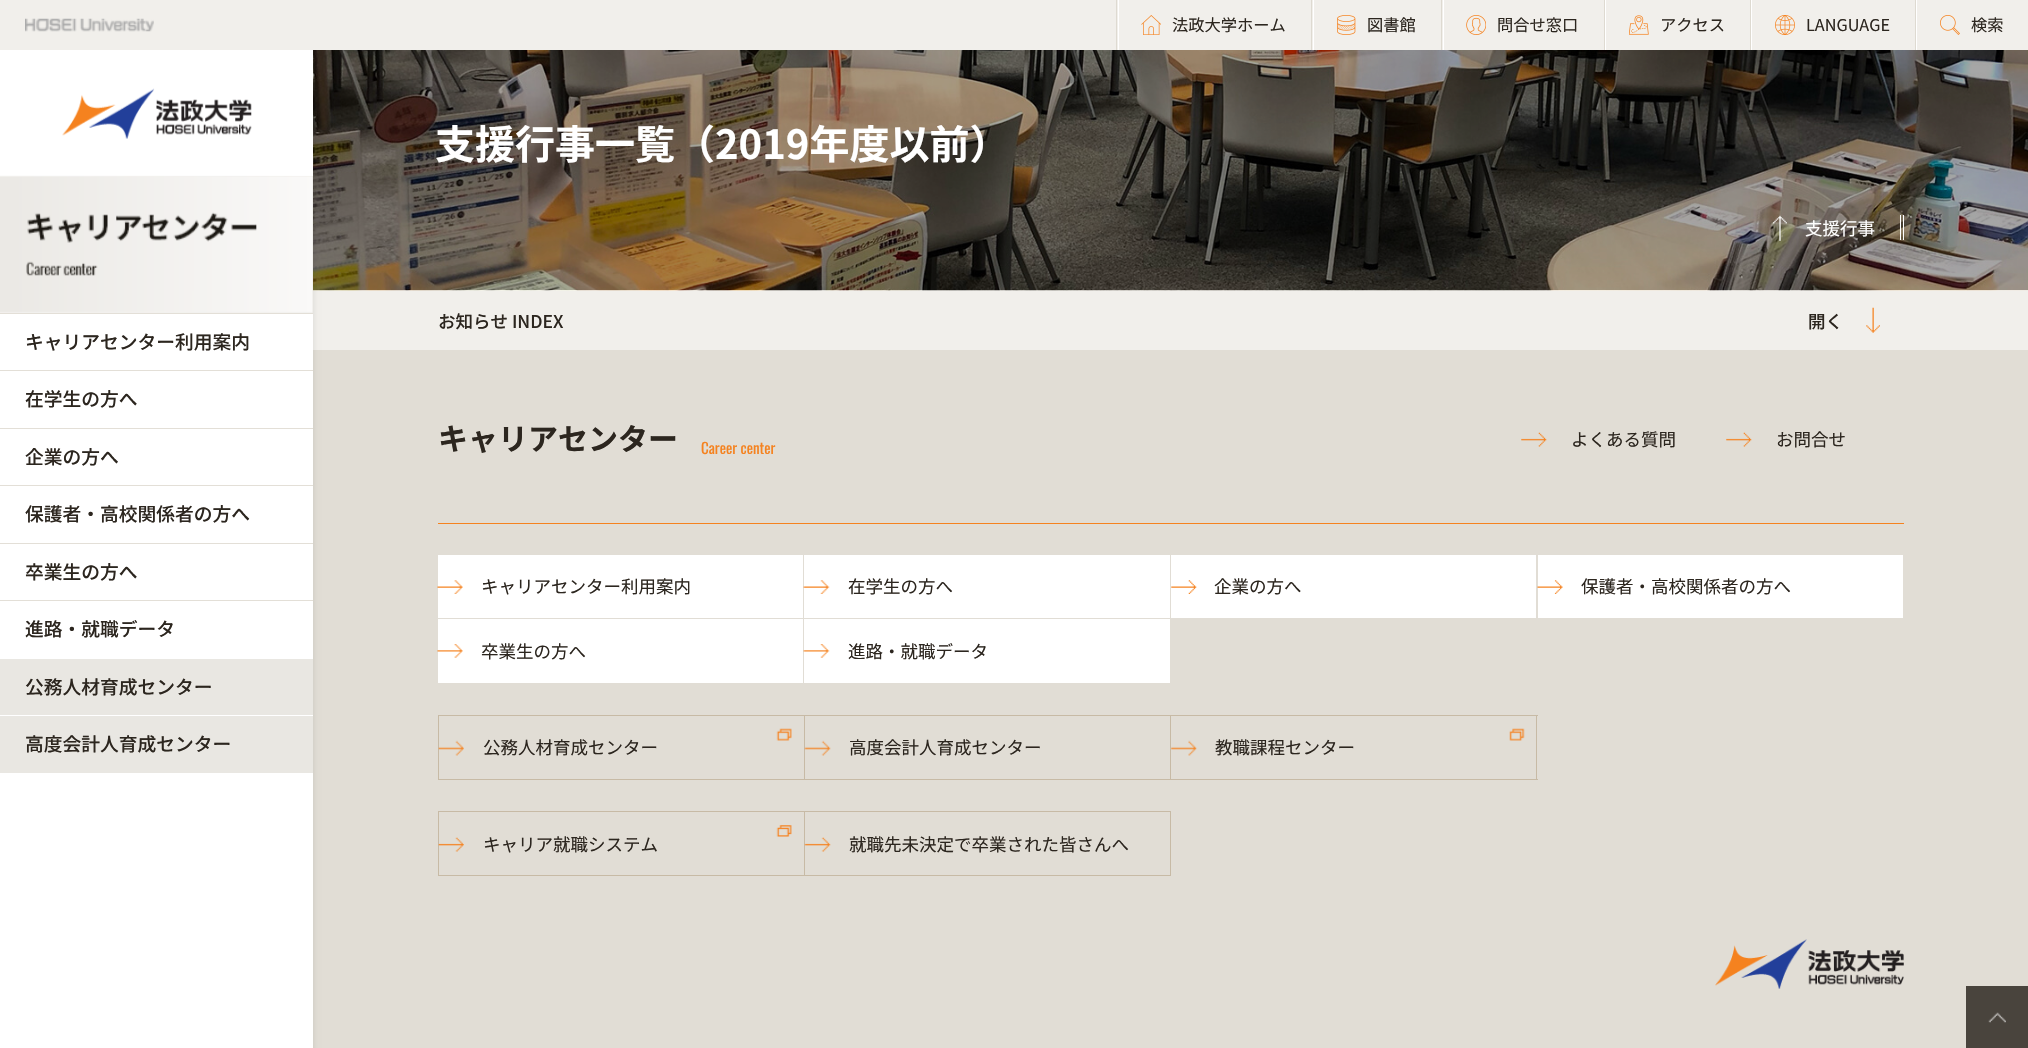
void draw(SkCanvas* canvas) {
    SkPaint paint;
    paint.setAntiAlias(true);
    canvas->clear(0xFFE1DDD5);
    paint.setColor(0xFFF1EFEB);
    canvas->drawRect(SkRect::MakeXYWH(313, 290, 1715, 60), paint);
    canvas->drawImageRect(SkImages::DeferredFromEncodedData(SkData::MakeFromFileName("img10.png")), SkRect::MakeXYWH(313, 50, 1715, 241), SkSamplingOptions());
    paint.setColor(0x1A000000);
    paint.setMaskFilter(SkMaskFilter::MakeBlur(kNormal_SkBlurStyle, 3));
    canvas->drawRect(SkRect::MakeXYWH(0, 50, 313, 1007), paint);
    paint.setMaskFilter(nullptr);
    paint.setColor(0xFFF1EFEB);
    canvas->drawRect(SkRect::MakeXYWH(0, 0, 2028, 50), paint);
    canvas->drawImageRect(SkImages::DeferredFromEncodedData(SkData::MakeFromFileName("img1.png")), SkRect::MakeXYWH(25, 18, 129, 14), SkSamplingOptions());
    paint.setColor(0xFFDEDAD1);
    canvas->drawRect(SkRect::MakeXYWH(1116, 0, 1, 50), paint);
    paint.setColor(0xFFFFFFFF);
    canvas->drawRect(SkRect::MakeXYWH(1118, 0, 1, 50), paint);
    canvas->drawImageRect(SkImages::DeferredFromEncodedData(SkData::MakeFromFileName("img2.png")), SkRect::MakeXYWH(1141, 15, 20, 20), SkSamplingOptions());
    SkFont font1(fontMgr->matchFamilyStyle("Noto Sans JP", SkFontStyle::Normal()), 16.25f);
    font1.setSubpixel(true);
    paint.setColor(0xFF2C261F);
    canvas->drawString("法政大学ホーム", 1172, 31, font1, paint);
    paint.setColor(0xFFDEDAD1);
    canvas->drawRect(SkRect::MakeXYWH(1311, 0, 1, 50), paint);
    paint.setColor(0xFFFFFFFF);
    canvas->drawRect(SkRect::MakeXYWH(1313, 0, 1, 50), paint);
    canvas->drawImageRect(SkImages::DeferredFromEncodedData(SkData::MakeFromFileName("img3.png")), SkRect::MakeXYWH(1337, 15, 19, 20), SkSamplingOptions());
    paint.setColor(0xFF2C261F);
    canvas->drawString("図書館", 1367, 31, font1, paint);
    paint.setColor(0xFFDEDAD1);
    canvas->drawRect(SkRect::MakeXYWH(1441, 0, 1, 50), paint);
    paint.setColor(0xFFFFFFFF);
    canvas->drawRect(SkRect::MakeXYWH(1443, 0, 1, 50), paint);
    canvas->drawImageRect(SkImages::DeferredFromEncodedData(SkData::MakeFromFileName("img4.png")), SkRect::MakeXYWH(1466, 15, 20, 20), SkSamplingOptions());
    paint.setColor(0xFF2C261F);
    canvas->drawString("問合せ窓口", 1497, 31, font1, paint);
    paint.setColor(0xFFDEDAD1);
    canvas->drawRect(SkRect::MakeXYWH(1604, 0, 1, 50), paint);
    paint.setColor(0xFFFFFFFF);
    canvas->drawRect(SkRect::MakeXYWH(1605, 0, 1, 50), paint);
    canvas->drawImageRect(SkImages::DeferredFromEncodedData(SkData::MakeFromFileName("img5.png")), SkRect::MakeXYWH(1629, 15, 20, 20), SkSamplingOptions());
    paint.setColor(0xFF2C261F);
    canvas->drawString("アクセス", 1660, 31, font1, paint);
    paint.setColor(0xFFDEDAD1);
    canvas->drawRect(SkRect::MakeXYWH(1750, 0, 1, 50), paint);
    paint.setColor(0xFFFFFFFF);
    canvas->drawRect(SkRect::MakeXYWH(1751, 0, 1, 50), paint);
    canvas->drawImageRect(SkImages::DeferredFromEncodedData(SkData::MakeFromFileName("img6.png")), SkRect::MakeXYWH(1775, 15, 20, 20), SkSamplingOptions());
    paint.setColor(0xFF2C261F);
    canvas->drawString("LANGUAGE", 1806, 31, font1, paint);
    paint.setColor(0xFFDEDAD1);
    canvas->drawRect(SkRect::MakeXYWH(1915, 0, 1, 50), paint);
    paint.setColor(0xFFFFFFFF);
    canvas->drawRect(SkRect::MakeXYWH(1916, 0, 1, 50), paint);
    canvas->drawImageRect(SkImages::DeferredFromEncodedData(SkData::MakeFromFileName("img7.png")), SkRect::MakeXYWH(1940, 15, 20, 20), SkSamplingOptions());
    paint.setColor(0xFF2C261F);
    canvas->drawString("検索", 1971, 31, font1, paint);
    paint.setColor(0xFFFFFFFF);
    canvas->drawRect(SkRect::MakeXYWH(0, 50, 313, 998), paint);
    canvas->drawImageRect(SkImages::DeferredFromEncodedData(SkData::MakeFromFileName("img8.png")), SkRect::MakeXYWH(62, 88, 190, 51), SkSamplingOptions());
    {
        const SkColor colors[] = {0xFFEBE9E5, 0xFFFAF9F8};
        const float stops[] = {0, 1};
        const SkPoint ends[] = {{313, 244}, {0, 244}};
        paint.setShader(SkGradientShader::MakeLinear(ends, colors, stops, 2, SkTileMode::kClamp));
        paint.setAlpha(255);
    }
    canvas->drawRect(SkRect::MakeXYWH(0, 176, 313, 137), paint);
    canvas->drawImageRect(SkImages::DeferredFromEncodedData(SkData::MakeFromFileName("img9.png")), SkRect::MakeXYWH(0, 175, 313, 138), SkSamplingOptions());
    paint.setShader(nullptr);
    paint.setColor(0xFFE3DFD7);
    canvas->drawRect(SkRect::MakeXYWH(0, 313, 313, 1), paint);
    SkFont font2(fontMgr->matchFamilyStyle("Noto Sans JP", SkFontStyle(500, SkFontStyle::kNormal_Width, SkFontStyle::kUpright_Slant)), 18.75f);
    font2.setSubpixel(true);
    paint.setColor(0xFF2C261F);
    canvas->drawString("キャリアセンター利用案内", 25, 349, font2, paint);
    paint.setColor(0xFFE3DFD7);
    canvas->drawRect(SkRect::MakeXYWH(0, 370, 313, 1), paint);
    paint.setColor(0xFF2C261F);
    canvas->drawString("在学生の方へ", 25, 406, font2, paint);
    paint.setColor(0xFFE3DFD7);
    canvas->drawRect(SkRect::MakeXYWH(0, 428, 313, 1), paint);
    paint.setColor(0xFF2C261F);
    canvas->drawString("企業の方へ", 25, 464, font2, paint);
    paint.setColor(0xFFE3DFD7);
    canvas->drawRect(SkRect::MakeXYWH(0, 485, 313, 1), paint);
    paint.setColor(0xFF2C261F);
    canvas->drawString("保護者・高校関係者の方へ", 25, 521, font2, paint);
    paint.setColor(0xFFE3DFD7);
    canvas->drawRect(SkRect::MakeXYWH(0, 543, 313, 1), paint);
    paint.setColor(0xFF2C261F);
    canvas->drawString("卒業生の方へ", 25, 579, font2, paint);
    paint.setColor(0xFFE3DFD7);
    canvas->drawRect(SkRect::MakeXYWH(0, 600, 313, 1), paint);
    paint.setColor(0xFF2C261F);
    canvas->drawString("進路・就職データ", 25, 636, font2, paint);
    paint.setColor(0xFFE9E7E2);
    canvas->drawRect(SkRect::MakeXYWH(0, 659, 313, 56), paint);
    paint.setColor(0xFF2C261F);
    canvas->drawString("公務人材育成センター", 25, 694, font2, paint);
    paint.setColor(0xFFE9E7E2);
    canvas->drawRect(SkRect::MakeXYWH(0, 716, 313, 57), paint);
    paint.setColor(0xFF2C261F);
    canvas->drawString("高度会計人育成センター", 25, 751, font2, paint);
    SkFont font3(fontMgr->matchFamilyStyle("Noto Sans JP", SkFontStyle::Bold()), 40);
    font3.setSubpixel(true);
    paint.setColor(0xFFFFFFFF);
    canvas->drawString("支援行事一覧（2019年度以前）", 435, 159, font3, paint);
    canvas->drawImageRect(SkImages::DeferredFromEncodedData(SkData::MakeFromFileName("img11.png")), SkRect::MakeXYWH(1773, 215, 14, 26), SkSamplingOptions());
    SkFont font4(fontMgr->matchFamilyStyle("Noto Sans JP", SkFontStyle::Normal()), 17.5f);
    font4.setSubpixel(true);
    canvas->drawString("支援行事", 1805, 235, font4, paint);
    canvas->drawRect(SkRect::MakeXYWH(1900, 215, 1, 25), paint);
    canvas->drawRect(SkRect::MakeXYWH(1903, 215, 1, 25), paint);
    SkFont font5(fontMgr->matchFamilyStyle("Noto Sans JP", SkFontStyle(500, SkFontStyle::kNormal_Width, SkFontStyle::kUpright_Slant)), 17.5f);
    font5.setSubpixel(true);
    paint.setColor(0xFF2C261F);
    canvas->drawString("お知らせ INDEX", 438, 328, font5, paint);
    canvas->drawString("開く", 1808, 328, font5, paint);
    canvas->drawImageRect(SkImages::DeferredFromEncodedData(SkData::MakeFromFileName("img12.png")), SkRect::MakeXYWH(1866, 307, 14, 26), SkSamplingOptions());
    paint.setColor(0xFFF5821F);
    canvas->drawRect(SkRect::MakeXYWH(438, 523, 1466, 1), paint);
    SkFont font6(fontMgr->matchFamilyStyle("Noto Sans JP", SkFontStyle::Bold()), 30);
    font6.setSubpixel(true);
    paint.setColor(0xFF2C261F);
    canvas->drawString("キャリアセンター", 438, 450, font6, paint);
    SkFont font7(fontMgr->matchFamilyStyle("Oswald", SkFontStyle::Normal()), 15);
    font7.setSubpixel(true);
    paint.setColor(0xFFF5821F);
    canvas->drawString("Career center", 701, 454, font7, paint);
    canvas->drawImageRect(SkImages::DeferredFromEncodedData(SkData::MakeFromFileName("img13.png")), SkRect::MakeXYWH(1521, 432, 26, 15), SkSamplingOptions());
    paint.setColor(0xFF2C261F);
    canvas->drawString("よくある質問", 1571, 446, font4, paint);
    canvas->drawImageRect(SkImages::DeferredFromEncodedData(SkData::MakeFromFileName("img13.png")), SkRect::MakeXYWH(1726, 432, 26, 15), SkSamplingOptions());
    canvas->drawString("お問合せ", 1776, 446, font4, paint);
    paint.setColor(0xFFFFFFFF);
    canvas->drawRect(SkRect::MakeXYWH(438, 555, 365, 63), paint);
    canvas->drawImageRect(SkImages::DeferredFromEncodedData(SkData::MakeFromFileName("img14.png")), SkRect::MakeXYWH(437, 580, 26, 14), SkSamplingOptions());
    paint.setColor(0xFF2C261F);
    canvas->drawString("キャリアセンター利用案内", 481, 593, font4, paint);
    paint.setColor(0xFFFFFFFF);
    canvas->drawRect(SkRect::MakeXYWH(804, 555, 366, 63), paint);
    canvas->drawImageRect(SkImages::DeferredFromEncodedData(SkData::MakeFromFileName("img15.png")), SkRect::MakeXYWH(803, 580, 27, 14), SkSamplingOptions());
    paint.setColor(0xFF2C261F);
    canvas->drawString("在学生の方へ", 848, 593, font4, paint);
    paint.setColor(0xFFFFFFFF);
    canvas->drawRect(SkRect::MakeXYWH(1171, 555, 365, 63), paint);
    canvas->drawImageRect(SkImages::DeferredFromEncodedData(SkData::MakeFromFileName("img16.png")), SkRect::MakeXYWH(1171, 580, 26, 14), SkSamplingOptions());
    paint.setColor(0xFF2C261F);
    canvas->drawString("企業の方へ", 1214, 593, font4, paint);
    paint.setColor(0xFFFFFFFF);
    canvas->drawRect(SkRect::MakeXYWH(1538, 555, 365, 63), paint);
    canvas->drawImageRect(SkImages::DeferredFromEncodedData(SkData::MakeFromFileName("img17.png")), SkRect::MakeXYWH(1537, 580, 26, 14), SkSamplingOptions());
    paint.setColor(0xFF2C261F);
    canvas->drawString("保護者・高校関係者の方へ", 1581, 593, font4, paint);
    paint.setColor(0xFFFFFFFF);
    canvas->drawRect(SkRect::MakeXYWH(438, 619, 365, 64), paint);
    canvas->drawImageRect(SkImages::DeferredFromEncodedData(SkData::MakeFromFileName("img18.png")), SkRect::MakeXYWH(437, 644, 26, 14), SkSamplingOptions());
    paint.setColor(0xFF2C261F);
    canvas->drawString("卒業生の方へ", 481, 658, font4, paint);
    paint.setColor(0xFFFFFFFF);
    canvas->drawRect(SkRect::MakeXYWH(804, 619, 366, 64), paint);
    canvas->drawImageRect(SkImages::DeferredFromEncodedData(SkData::MakeFromFileName("img19.png")), SkRect::MakeXYWH(803, 644, 27, 14), SkSamplingOptions());
    paint.setColor(0xFF2C261F);
    canvas->drawString("進路・就職データ", 848, 658, font4, paint);
    paint.setColor(0xFFC7BAA5);
    canvas->drawRect(SkRect::MakeXYWH(438, 715, 1, 65), paint);
    canvas->drawRect(SkRect::MakeXYWH(439, 715, 1099, 1), paint);
    canvas->drawRect(SkRect::MakeXYWH(804, 715, 1, 65), paint);
    canvas->drawRect(SkRect::MakeXYWH(439, 779, 366, 1), paint);
    canvas->drawImageRect(SkImages::DeferredFromEncodedData(SkData::MakeFromFileName("img20.png")), SkRect::MakeXYWH(776, 728, 16, 13), SkSamplingOptions());
    canvas->drawImageRect(SkImages::DeferredFromEncodedData(SkData::MakeFromFileName("img21.png")), SkRect::MakeXYWH(438, 740, 26, 16), SkSamplingOptions());
    paint.setColor(0xFF2C261F);
    canvas->drawString("公務人材育成センター", 483, 754, font4, paint);
    paint.setColor(0xFFC7BAA5);
    canvas->drawRect(SkRect::MakeXYWH(1170, 715, 1, 65), paint);
    canvas->drawRect(SkRect::MakeXYWH(805, 779, 366, 1), paint);
    canvas->drawImageRect(SkImages::DeferredFromEncodedData(SkData::MakeFromFileName("img22.png")), SkRect::MakeXYWH(804, 740, 27, 16), SkSamplingOptions());
    paint.setColor(0xFF2C261F);
    canvas->drawString("高度会計人育成センター", 849, 754, font4, paint);
    paint.setColor(0xFFC7BAA5);
    canvas->drawRect(SkRect::MakeXYWH(1536, 715, 1, 65), paint);
    canvas->drawRect(SkRect::MakeXYWH(1171, 779, 367, 1), paint);
    canvas->drawImageRect(SkImages::DeferredFromEncodedData(SkData::MakeFromFileName("img23.png")), SkRect::MakeXYWH(1509, 728, 16, 13), SkSamplingOptions());
    canvas->drawImageRect(SkImages::DeferredFromEncodedData(SkData::MakeFromFileName("img24.png")), SkRect::MakeXYWH(1171, 740, 26, 16), SkSamplingOptions());
    paint.setColor(0xFF2C261F);
    canvas->drawString("教職課程センター", 1215, 754, font4, paint);
    paint.setColor(0xFFC7BAA5);
    canvas->drawRect(SkRect::MakeXYWH(438, 811, 1, 65), paint);
    canvas->drawRect(SkRect::MakeXYWH(439, 811, 732, 1), paint);
    canvas->drawRect(SkRect::MakeXYWH(804, 811, 1, 65), paint);
    canvas->drawRect(SkRect::MakeXYWH(439, 875, 366, 1), paint);
    canvas->drawImageRect(SkImages::DeferredFromEncodedData(SkData::MakeFromFileName("img25.png")), SkRect::MakeXYWH(776, 825, 16, 12), SkSamplingOptions());
    canvas->drawImageRect(SkImages::DeferredFromEncodedData(SkData::MakeFromFileName("img26.png")), SkRect::MakeXYWH(438, 837, 26, 15), SkSamplingOptions());
    paint.setColor(0xFF2C261F);
    canvas->drawString("キャリア就職システム", 483, 851, font4, paint);
    paint.setColor(0xFFC7BAA5);
    canvas->drawRect(SkRect::MakeXYWH(1170, 811, 1, 65), paint);
    canvas->drawRect(SkRect::MakeXYWH(805, 875, 366, 1), paint);
    canvas->drawImageRect(SkImages::DeferredFromEncodedData(SkData::MakeFromFileName("img27.png")), SkRect::MakeXYWH(804, 837, 27, 15), SkSamplingOptions());
    paint.setColor(0xFF2C261F);
    canvas->drawString("就職先未決定で卒業された皆さんへ", 849, 851, font4, paint);
    canvas->drawImageRect(SkImages::DeferredFromEncodedData(SkData::MakeFromFileName("img28.png")), SkRect::MakeXYWH(1715, 939, 189, 50), SkSamplingOptions());
    paint.setColor(0xFF49443D);
    canvas->drawRect(SkRect::MakeXYWH(1966, 986, 62, 62), paint);
    canvas->drawImageRect(SkImages::DeferredFromEncodedData(SkData::MakeFromFileName("img29.png")), SkRect::MakeXYWH(1988, 1012, 18, 11), SkSamplingOptions());
}
